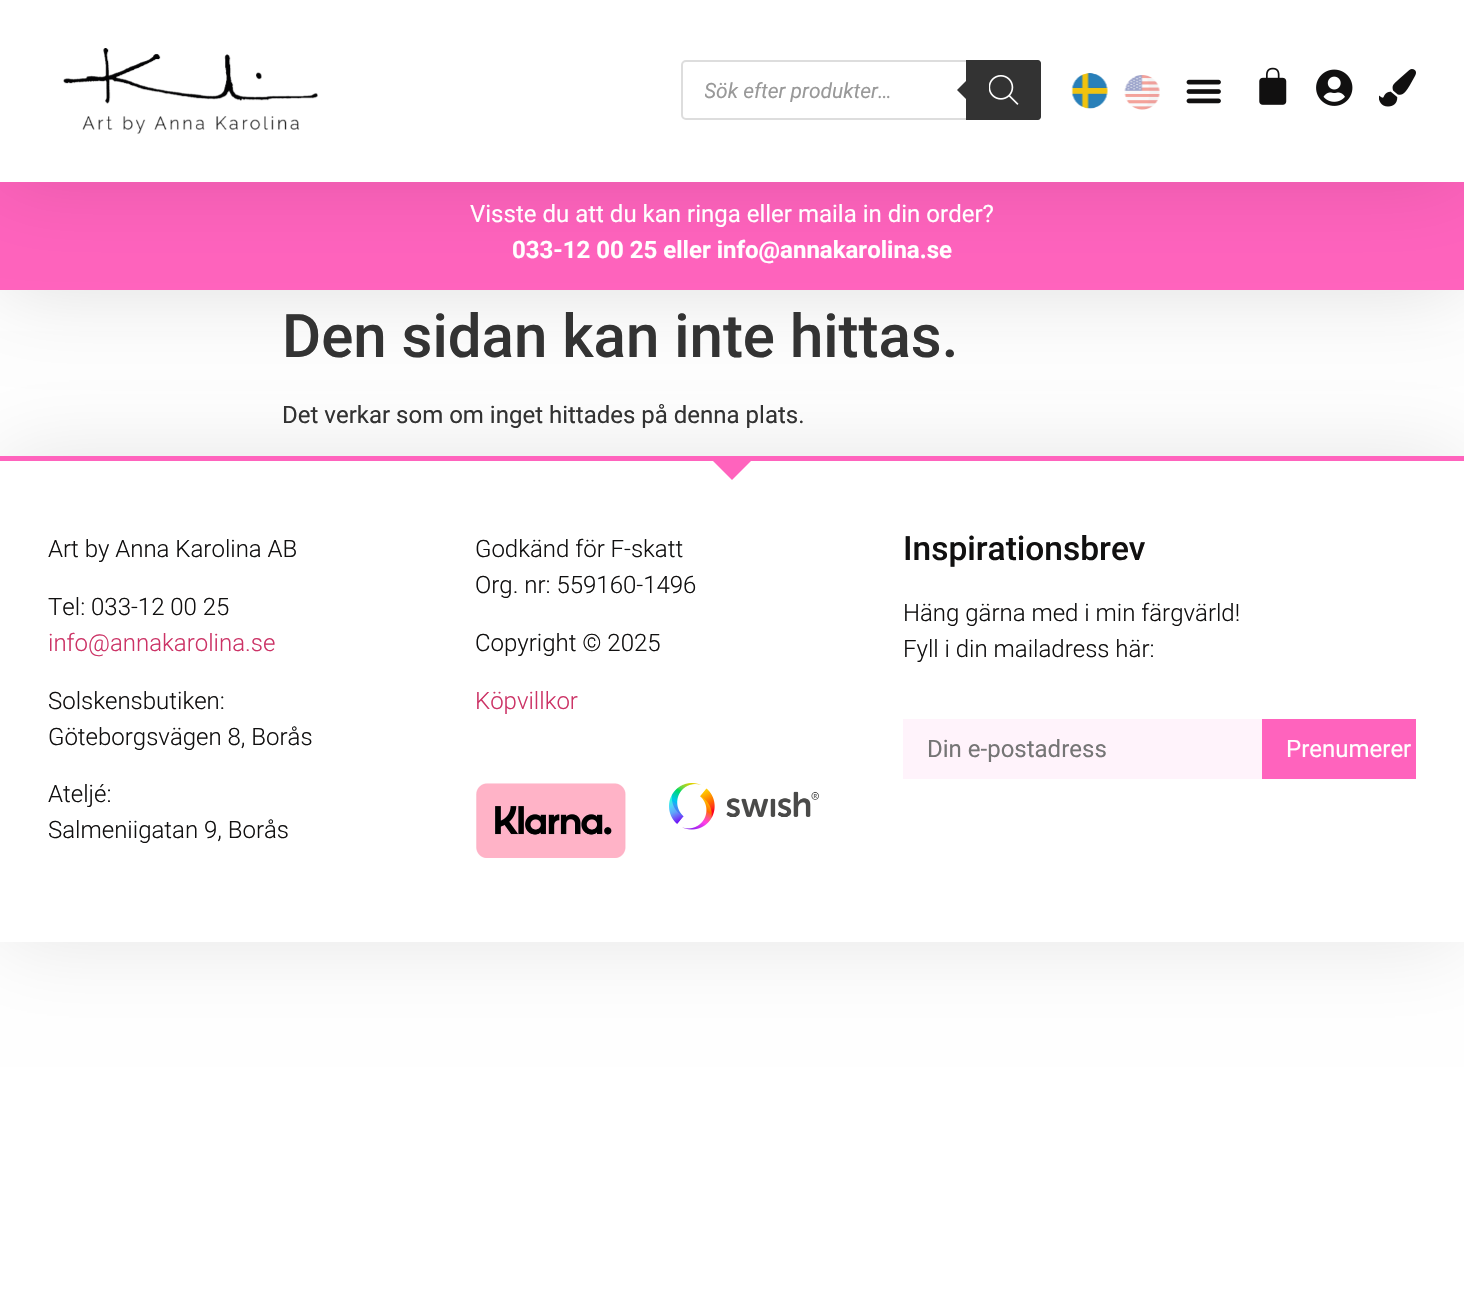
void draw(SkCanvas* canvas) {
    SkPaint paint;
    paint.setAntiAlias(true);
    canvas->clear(0xFFFFFFFF);
    paint.setColor(0x21000000);
    paint.setMaskFilter(SkMaskFilter::MakeBlur(kNormal_SkBlurStyle, 42));
    canvas->drawRect(SkRect::MakeXYWH(0, 182, 1464, 108), paint);
    paint.setMaskFilter(nullptr);
    paint.setColor(0xFFFF63BD);
    canvas->drawRect(SkRect::MakeXYWH(0, 182, 1464, 108), paint);
    paint.setColor(0x1C000000);
    paint.setMaskFilter(SkMaskFilter::MakeBlur(kNormal_SkBlurStyle, 42));
    canvas->drawRect(SkRect::MakeXYWH(0, 0, 1464, 182), paint);
    paint.setMaskFilter(nullptr);
    paint.setColor(0xFFFFFFFF);
    canvas->drawRect(SkRect::MakeXYWH(0, 0, 1464, 182), paint);
    canvas->drawImageRect(SkImages::DeferredFromEncodedData(SkData::MakeFromFileName("img1.png")), SkRect::MakeXYWH(63, 48, 255, 86), SkSamplingOptions());
    paint.setStyle(SkPaint::kStroke_Style);
    paint.setStrokeWidth(2);
    paint.setColor(0xFFDDDDDD);
    canvas->drawRoundRect(SkRect::MakeXYWH(682, 61, 358, 58), 4, 4, paint);
    canvas->save();
    canvas->clipRect(SkRect::MakeXYWH(705, 78, 312, 24));
    SkFont font1(fontMgr->matchFamilyStyle("Roboto", SkFontStyle::Italic()), 21);
    font1.setSubpixel(true);
    paint.setStyle(SkPaint::kFill_Style);
    paint.setColor(0xFF999999);
    canvas->drawString("Sök efter produkter…", 704, 98, font1, paint);
    canvas->restore();
    paint.setColor(0xFF333333);
    canvas->drawPath(SkPathBuilder().moveTo(966, 60).lineTo(1038, 60).cubicTo(1039.5f, 60, 1041, 61.5f, 1041, 63).lineTo(1041, 117).cubicTo(1041, 118.5f, 1039.5f, 120, 1038, 120).lineTo(966, 120).close().detach(), paint);
    canvas->drawPath(SkPathBuilder().moveTo(969, 78).lineTo(969, 102).lineTo(957, 90).close().detach(), paint);
    canvas->drawImageRect(SkImages::DeferredFromEncodedData(SkData::MakeFromFileName("img2.png")), SkRect::MakeXYWH(989, 75, 30, 30), SkSamplingOptions());
    canvas->drawImageRect(SkImages::DeferredFromEncodedData(SkData::MakeFromFileName("img3.png")), SkRect::MakeXYWH(1071, 73, 37, 36), SkSamplingOptions());
    canvas->drawImageRect(SkImages::DeferredFromEncodedData(SkData::MakeFromFileName("img4.png")), SkRect::MakeXYWH(1124, 75, 36, 35), SkSamplingOptions());
    canvas->drawImageRect(SkImages::DeferredFromEncodedData(SkData::MakeFromFileName("img5.png")), SkRect::MakeXYWH(1186, 79, 35, 25), SkSamplingOptions());
    canvas->drawImageRect(SkImages::DeferredFromEncodedData(SkData::MakeFromFileName("img6.png")), SkRect::MakeXYWH(1259, 67, 28, 38), SkSamplingOptions());
    canvas->drawImageRect(SkImages::DeferredFromEncodedData(SkData::MakeFromFileName("img7.png")), SkRect::MakeXYWH(1316, 69, 37, 37), SkSamplingOptions());
    canvas->drawImageRect(SkImages::DeferredFromEncodedData(SkData::MakeFromFileName("img8.png")), SkRect::MakeXYWH(1379, 69, 37, 38), SkSamplingOptions());
    SkFont font2(fontMgr->matchFamilyStyle("Roboto", SkFontStyle::Normal()), 24);
    font2.setSubpixel(true);
    paint.setColor(0xFFFFFFFF);
    canvas->drawString("Visste du att du kan ringa eller maila in din order?", 470, 222, font2, paint);
    SkFont font3(fontMgr->matchFamilyStyle("Roboto", SkFontStyle::Bold()), 24);
    font3.setSubpixel(true);
    canvas->drawString("033-12 00 25 eller info@annakarolina.se", 512, 258, font3, paint);
    SkFont font4(fontMgr->matchFamilyStyle("Roboto", SkFontStyle(500, SkFontStyle::kNormal_Width, SkFontStyle::kUpright_Slant)), 60);
    font4.setSubpixel(true);
    paint.setColor(0xFF333333);
    canvas->drawString("Den sidan kan inte hittas.", 282, 357, font4, paint);
    canvas->drawString("Det verkar som om inget hittades på denna plats.", 282, 423, font2, paint);
    canvas->save();
    canvas->clipPath(SkPathBuilder(SkPathFillType::kEvenOdd).moveTo(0, 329).lineTo(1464, 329).lineTo(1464, 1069).lineTo(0, 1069).close().moveTo(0, 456).lineTo(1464, 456).lineTo(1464, 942).lineTo(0, 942).close().detach(), true);
    paint.setColor(0x1A000000);
    paint.setMaskFilter(SkMaskFilter::MakeBlur(kNormal_SkBlurStyle, 42));
    canvas->drawRect(SkRect::MakeXYWH(0, 456, 1464, 486), paint);
    paint.setMaskFilter(nullptr);
    canvas->restore();
    paint.setColor(0xFFFF63BD);
    canvas->drawRect(SkRect::MakeXYWH(0, 456, 1464, 5), paint);
    canvas->drawPath(SkPathBuilder().moveTo(732, 480).lineTo(711, 459).lineTo(753, 459).close().detach(), paint);
    SkFont font5(fontMgr->matchFamilyStyle("Roboto", SkFontStyle(300, SkFontStyle::kNormal_Width, SkFontStyle::kUpright_Slant)), 24);
    font5.setSubpixel(true);
    paint.setColor(0xFF111010);
    canvas->drawString("Art by Anna Karolina AB", 48, 557, font5, paint);
    canvas->drawString("Tel: 033-12 00 25", 48, 615, font5, paint);
    paint.setColor(0xFFCC3366);
    canvas->drawString("info@annakarolina.se", 48, 651, font5, paint);
    paint.setColor(0xFF111010);
    canvas->drawString("Solskensbutiken:", 48, 709, font5, paint);
    canvas->drawString("Göteborgsvägen 8, Borås", 48, 745, font5, paint);
    canvas->drawString("Ateljé:", 48, 802, font5, paint);
    canvas->drawString("Salmeniigatan 9, Borås", 48, 838, font5, paint);
    canvas->drawString("Godkänd för F-skatt", 475, 557, font5, paint);
    canvas->drawString("Org. nr: 559160-1496", 475, 593, font5, paint);
    canvas->drawString("Copyright © 2025", 475, 651, font5, paint);
    paint.setColor(0xFFCC3366);
    canvas->drawString("Köpvillkor", 475, 709, font5, paint);
    canvas->drawImageRect(SkImages::DeferredFromEncodedData(SkData::MakeFromFileName("img9.png")), SkRect::MakeXYWH(476, 783, 150, 75), SkSamplingOptions());
    canvas->drawImageRect(SkImages::DeferredFromEncodedData(SkData::MakeFromFileName("img10.png")), SkRect::MakeXYWH(669, 783, 150, 47), SkSamplingOptions());
    SkFont font6(fontMgr->matchFamilyStyle("Roboto", SkFontStyle(500, SkFontStyle::kNormal_Width, SkFontStyle::kUpright_Slant)), 33.5f);
    font6.setSubpixel(true);
    paint.setColor(0xFF111010);
    canvas->drawString("Inspirationsbrev", 903, 560, font6, paint);
    canvas->drawString("Häng gärna med i min färgvärld!", 903, 621, font5, paint);
    canvas->drawString("Fyll i din mailadress här:", 903, 657, font5, paint);
    paint.setColor(0xFFFFF3FB);
    canvas->drawRect(SkRect::MakeXYWH(903, 719, 359, 60), paint);
    paint.setColor(0xFF757575);
    canvas->drawString("Din e-postadress", 927, 757, font2, paint);
    paint.setColor(0xFFFF63BD);
    canvas->drawRect(SkRect::MakeXYWH(1262, 719, 154, 60), paint);
    paint.setColor(0xFFFFFFFF);
    canvas->drawString("Prenumerer", 1286, 757, font2, paint);
}
